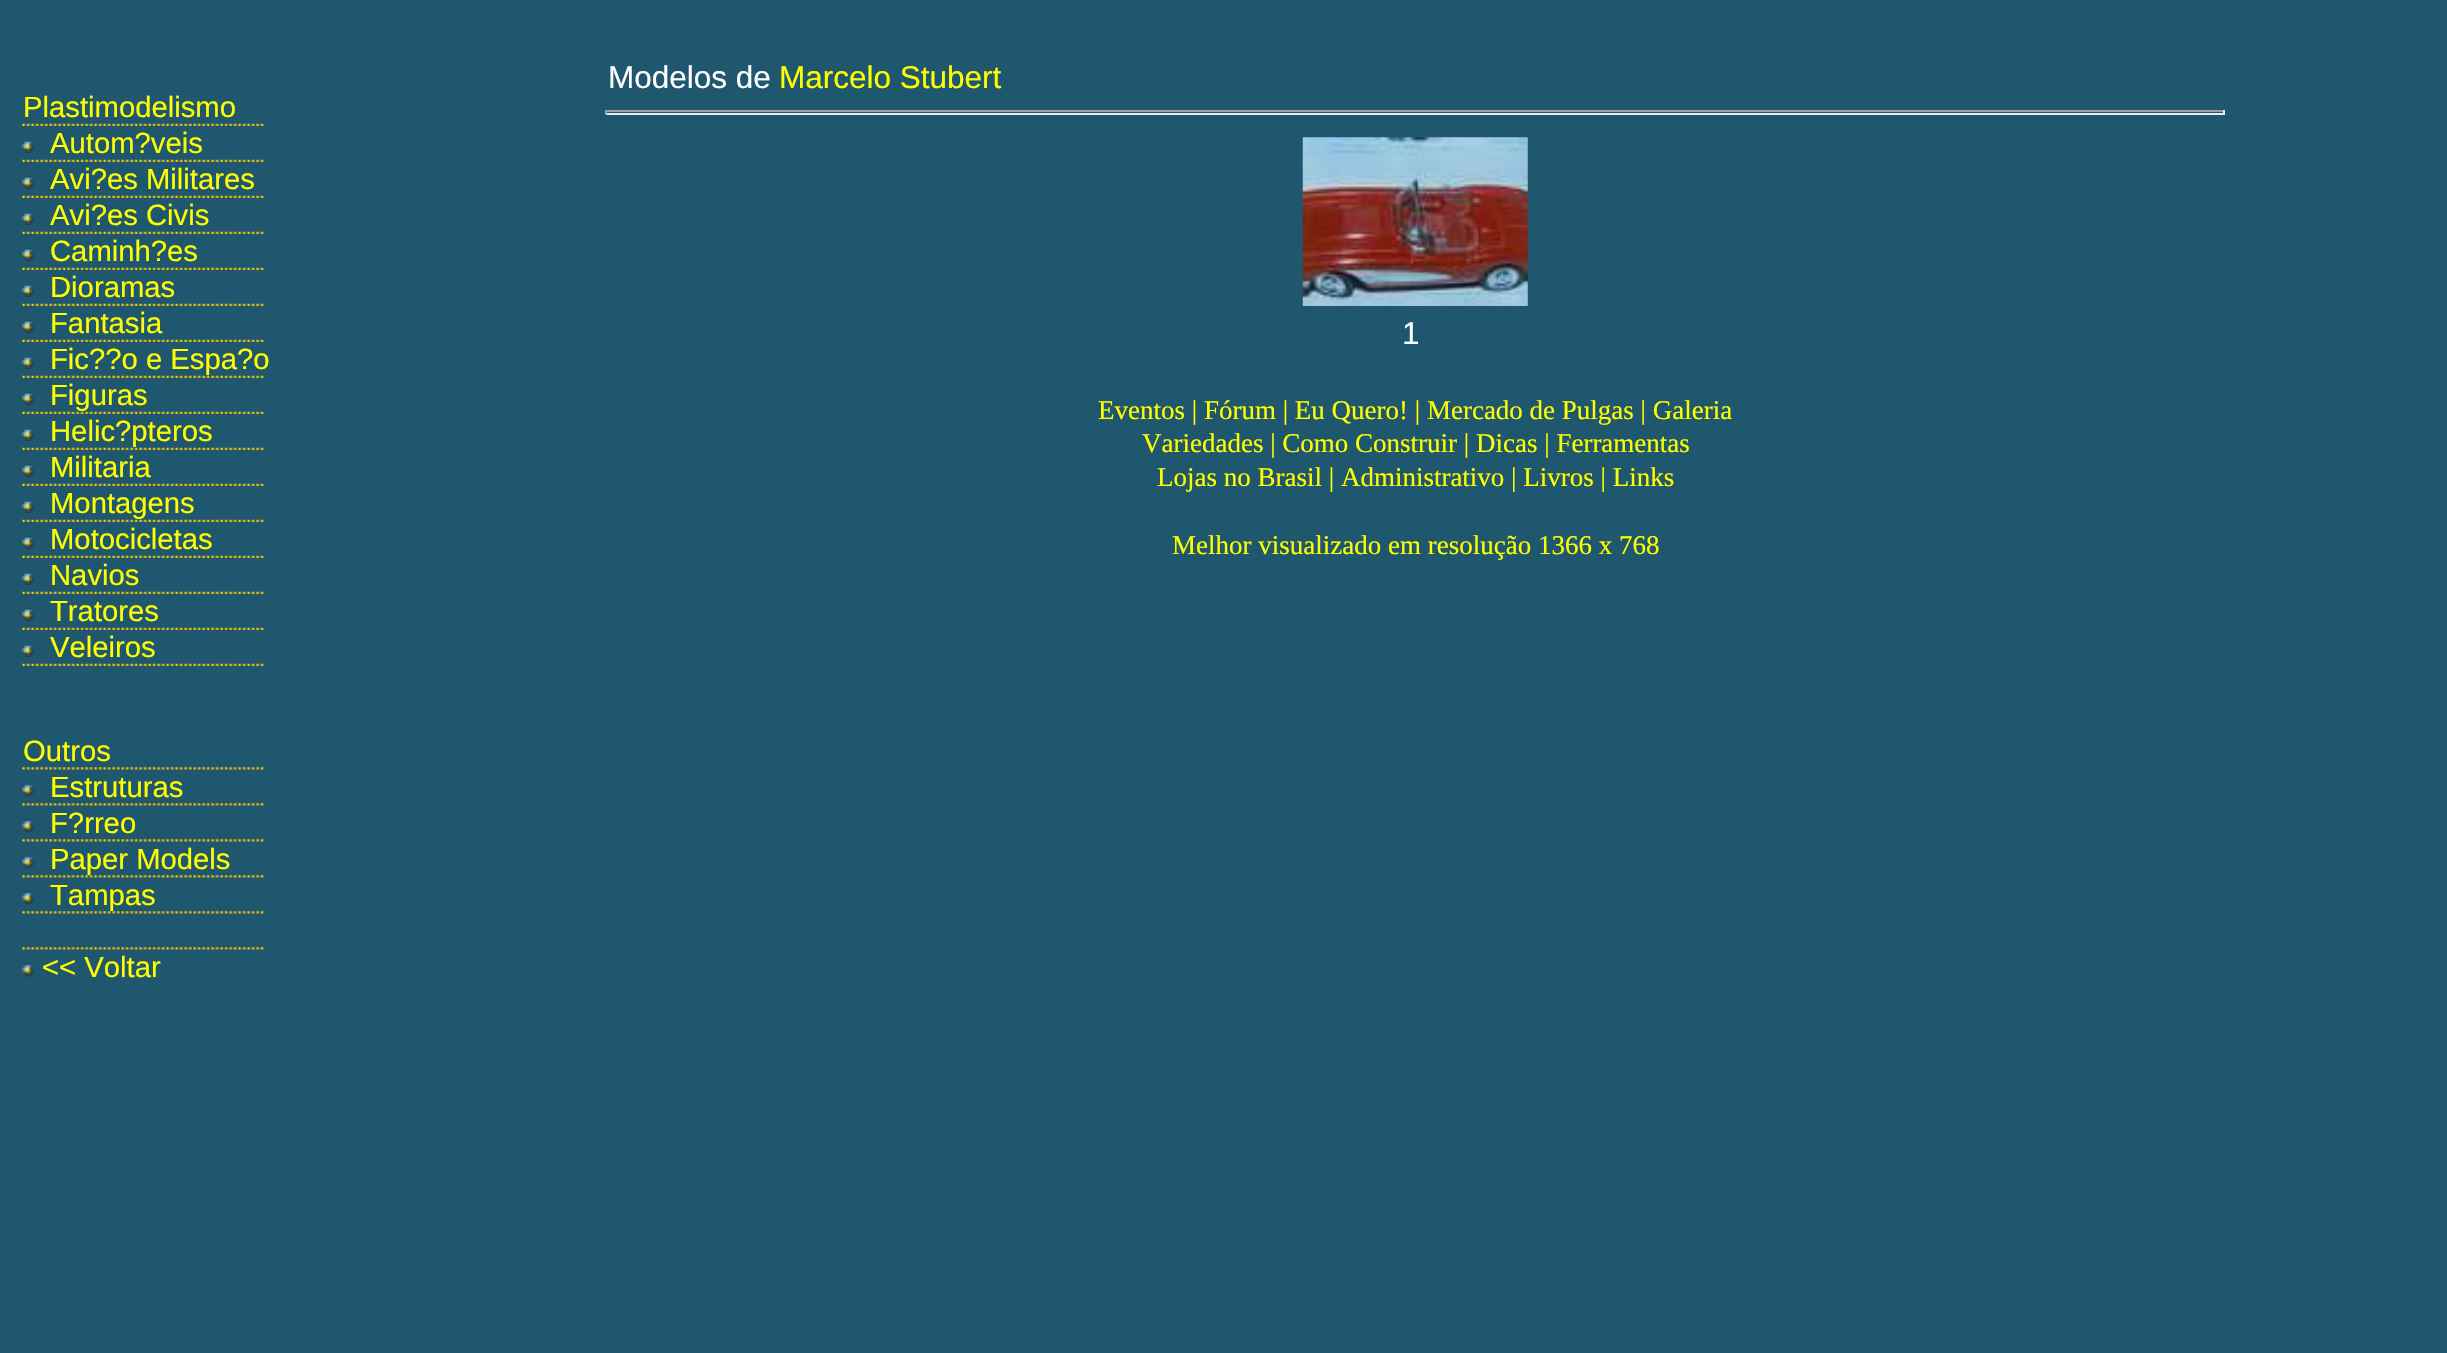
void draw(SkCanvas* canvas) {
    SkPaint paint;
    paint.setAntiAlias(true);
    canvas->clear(0xFF1F576F);
    SkFont font1(fontMgr->matchFamilyStyle("Liberation Sans", SkFontStyle::Normal()), 29.25f);
    font1.setSubpixel(true);
    paint.setColor(0xFFFFFF00);
    canvas->drawString("Plastimodelismo", 23, 117, font1, paint);
    canvas->drawImageRect(SkImages::DeferredFromEncodedData(SkData::MakeFromFileName("img1.png")), SkRect::MakeXYWH(22, 123, 242, 3), SkSamplingOptions());
    canvas->drawImageRect(SkImages::DeferredFromEncodedData(SkData::MakeFromFileName("img2.png")), SkRect::MakeXYWH(22, 141, 12, 12), SkSamplingOptions());
    canvas->drawString("Autom?veis", 50, 153, font1, paint);
    canvas->drawImageRect(SkImages::DeferredFromEncodedData(SkData::MakeFromFileName("img1.png")), SkRect::MakeXYWH(22, 159, 242, 3), SkSamplingOptions());
    canvas->drawImageRect(SkImages::DeferredFromEncodedData(SkData::MakeFromFileName("img2.png")), SkRect::MakeXYWH(22, 177, 12, 12), SkSamplingOptions());
    canvas->drawString("Avi?es Militares", 50, 189, font1, paint);
    canvas->drawImageRect(SkImages::DeferredFromEncodedData(SkData::MakeFromFileName("img1.png")), SkRect::MakeXYWH(22, 195, 242, 3), SkSamplingOptions());
    canvas->drawImageRect(SkImages::DeferredFromEncodedData(SkData::MakeFromFileName("img2.png")), SkRect::MakeXYWH(22, 213, 12, 12), SkSamplingOptions());
    canvas->drawString("Avi?es Civis", 50, 225, font1, paint);
    canvas->drawImageRect(SkImages::DeferredFromEncodedData(SkData::MakeFromFileName("img1.png")), SkRect::MakeXYWH(22, 231, 242, 3), SkSamplingOptions());
    canvas->drawImageRect(SkImages::DeferredFromEncodedData(SkData::MakeFromFileName("img2.png")), SkRect::MakeXYWH(22, 249, 12, 12), SkSamplingOptions());
    canvas->drawString("Caminh?es", 50, 261, font1, paint);
    canvas->drawImageRect(SkImages::DeferredFromEncodedData(SkData::MakeFromFileName("img1.png")), SkRect::MakeXYWH(22, 267, 242, 3), SkSamplingOptions());
    canvas->drawImageRect(SkImages::DeferredFromEncodedData(SkData::MakeFromFileName("img3.png")), SkRect::MakeXYWH(22, 285, 12, 12), SkSamplingOptions());
    canvas->drawString("Dioramas", 50, 297, font1, paint);
    canvas->drawImageRect(SkImages::DeferredFromEncodedData(SkData::MakeFromFileName("img1.png")), SkRect::MakeXYWH(22, 303, 242, 3), SkSamplingOptions());
    canvas->drawImageRect(SkImages::DeferredFromEncodedData(SkData::MakeFromFileName("img2.png")), SkRect::MakeXYWH(22, 321, 12, 12), SkSamplingOptions());
    canvas->drawString("Fantasia", 50, 333, font1, paint);
    canvas->drawImageRect(SkImages::DeferredFromEncodedData(SkData::MakeFromFileName("img1.png")), SkRect::MakeXYWH(22, 339, 242, 3), SkSamplingOptions());
    canvas->drawImageRect(SkImages::DeferredFromEncodedData(SkData::MakeFromFileName("img2.png")), SkRect::MakeXYWH(22, 357, 12, 12), SkSamplingOptions());
    canvas->drawString("Fic?\077o e Espa?o", 50, 369, font1, paint);
    canvas->drawImageRect(SkImages::DeferredFromEncodedData(SkData::MakeFromFileName("img4.png")), SkRect::MakeXYWH(22, 375, 242, 3), SkSamplingOptions());
    canvas->drawImageRect(SkImages::DeferredFromEncodedData(SkData::MakeFromFileName("img2.png")), SkRect::MakeXYWH(22, 393, 12, 12), SkSamplingOptions());
    canvas->drawString("Figuras", 50, 405, font1, paint);
    canvas->drawImageRect(SkImages::DeferredFromEncodedData(SkData::MakeFromFileName("img5.png")), SkRect::MakeXYWH(22, 411, 242, 3), SkSamplingOptions());
    canvas->drawImageRect(SkImages::DeferredFromEncodedData(SkData::MakeFromFileName("img2.png")), SkRect::MakeXYWH(22, 429, 12, 12), SkSamplingOptions());
    canvas->drawString("Helic?pteros", 50, 441, font1, paint);
    canvas->drawImageRect(SkImages::DeferredFromEncodedData(SkData::MakeFromFileName("img6.png")), SkRect::MakeXYWH(22, 447, 242, 3), SkSamplingOptions());
    canvas->drawImageRect(SkImages::DeferredFromEncodedData(SkData::MakeFromFileName("img2.png")), SkRect::MakeXYWH(22, 465, 12, 12), SkSamplingOptions());
    canvas->drawString("Militaria", 50, 477, font1, paint);
    canvas->drawImageRect(SkImages::DeferredFromEncodedData(SkData::MakeFromFileName("img1.png")), SkRect::MakeXYWH(22, 483, 242, 3), SkSamplingOptions());
    canvas->drawImageRect(SkImages::DeferredFromEncodedData(SkData::MakeFromFileName("img2.png")), SkRect::MakeXYWH(22, 501, 12, 12), SkSamplingOptions());
    canvas->drawString("Montagens", 50, 513, font1, paint);
    canvas->drawImageRect(SkImages::DeferredFromEncodedData(SkData::MakeFromFileName("img7.png")), SkRect::MakeXYWH(22, 519, 242, 3), SkSamplingOptions());
    canvas->drawImageRect(SkImages::DeferredFromEncodedData(SkData::MakeFromFileName("img2.png")), SkRect::MakeXYWH(22, 537, 12, 12), SkSamplingOptions());
    canvas->drawString("Motocicletas", 50, 549, font1, paint);
    canvas->drawImageRect(SkImages::DeferredFromEncodedData(SkData::MakeFromFileName("img1.png")), SkRect::MakeXYWH(22, 555, 242, 3), SkSamplingOptions());
    canvas->drawImageRect(SkImages::DeferredFromEncodedData(SkData::MakeFromFileName("img3.png")), SkRect::MakeXYWH(22, 573, 12, 12), SkSamplingOptions());
    canvas->drawString("Navios", 50, 585, font1, paint);
    canvas->drawImageRect(SkImages::DeferredFromEncodedData(SkData::MakeFromFileName("img1.png")), SkRect::MakeXYWH(22, 591, 242, 3), SkSamplingOptions());
    canvas->drawImageRect(SkImages::DeferredFromEncodedData(SkData::MakeFromFileName("img2.png")), SkRect::MakeXYWH(22, 609, 12, 12), SkSamplingOptions());
    canvas->drawString("Tratores", 50, 621, font1, paint);
    canvas->drawImageRect(SkImages::DeferredFromEncodedData(SkData::MakeFromFileName("img1.png")), SkRect::MakeXYWH(22, 627, 242, 3), SkSamplingOptions());
    canvas->drawImageRect(SkImages::DeferredFromEncodedData(SkData::MakeFromFileName("img2.png")), SkRect::MakeXYWH(22, 645, 12, 12), SkSamplingOptions());
    canvas->drawString("Veleiros", 50, 657, font1, paint);
    canvas->drawImageRect(SkImages::DeferredFromEncodedData(SkData::MakeFromFileName("img1.png")), SkRect::MakeXYWH(22, 663, 242, 3), SkSamplingOptions());
    canvas->drawString("Outros", 23, 761, font1, paint);
    canvas->drawImageRect(SkImages::DeferredFromEncodedData(SkData::MakeFromFileName("img8.png")), SkRect::MakeXYWH(22, 767, 242, 3), SkSamplingOptions());
    canvas->drawImageRect(SkImages::DeferredFromEncodedData(SkData::MakeFromFileName("img9.png")), SkRect::MakeXYWH(22, 785, 12, 12), SkSamplingOptions());
    canvas->drawString("Estruturas", 50, 797, font1, paint);
    canvas->drawImageRect(SkImages::DeferredFromEncodedData(SkData::MakeFromFileName("img8.png")), SkRect::MakeXYWH(22, 803, 242, 3), SkSamplingOptions());
    canvas->drawImageRect(SkImages::DeferredFromEncodedData(SkData::MakeFromFileName("img9.png")), SkRect::MakeXYWH(22, 821, 12, 12), SkSamplingOptions());
    canvas->drawString("F?rreo", 50, 833, font1, paint);
    canvas->drawImageRect(SkImages::DeferredFromEncodedData(SkData::MakeFromFileName("img8.png")), SkRect::MakeXYWH(22, 839, 242, 3), SkSamplingOptions());
    canvas->drawImageRect(SkImages::DeferredFromEncodedData(SkData::MakeFromFileName("img9.png")), SkRect::MakeXYWH(22, 857, 12, 12), SkSamplingOptions());
    canvas->drawString("Paper Models", 50, 869, font1, paint);
    canvas->drawImageRect(SkImages::DeferredFromEncodedData(SkData::MakeFromFileName("img10.png")), SkRect::MakeXYWH(22, 875, 242, 3), SkSamplingOptions());
    canvas->drawImageRect(SkImages::DeferredFromEncodedData(SkData::MakeFromFileName("img9.png")), SkRect::MakeXYWH(22, 893, 12, 12), SkSamplingOptions());
    canvas->drawString("Tampas", 50, 905, font1, paint);
    canvas->drawImageRect(SkImages::DeferredFromEncodedData(SkData::MakeFromFileName("img11.png")), SkRect::MakeXYWH(22, 911, 242, 3), SkSamplingOptions());
    canvas->drawImageRect(SkImages::DeferredFromEncodedData(SkData::MakeFromFileName("img8.png")), SkRect::MakeXYWH(22, 947, 242, 3), SkSamplingOptions());
    canvas->drawImageRect(SkImages::DeferredFromEncodedData(SkData::MakeFromFileName("img9.png")), SkRect::MakeXYWH(22, 965, 12, 12), SkSamplingOptions());
    canvas->drawString("<< Voltar", 42, 977, font1, paint);
    SkFont font2(fontMgr->matchFamilyStyle("Liberation Sans", SkFontStyle::Normal()), 31.5f);
    font2.setSubpixel(true);
    paint.setColor(0xFFFFFFFF);
    canvas->drawString("Modelos de", 608, 88, font2, paint);
    paint.setColor(0xFFFFFF00);
    canvas->drawString("Marcelo Stubert", 779, 88, font2, paint);
    paint.setColor(0xFF9F9F9F);
    canvas->drawRect(SkRect::MakeXYWH(605, 110, 1620, 2), paint);
    paint.setColor(0xFFEEEEEE);
    canvas->drawRect(SkRect::MakeXYWH(2223, 110, 2, 5), paint);
    canvas->drawRect(SkRect::MakeXYWH(605, 113, 1620, 2), paint);
    paint.setColor(0xFF9F9F9F);
    canvas->drawRect(SkRect::MakeXYWH(605, 110, 2, 5), paint);
    canvas->drawImageRect(SkImages::DeferredFromEncodedData(SkData::MakeFromFileName("img12.png")), SkRect::MakeXYWH(1302, 137, 226, 169), SkSamplingOptions());
    paint.setColor(0xFFFFFFFF);
    canvas->drawString("1", 1402, 344, font2, paint);
    SkFont font3(fontMgr->matchFamilyStyle("Liberation Serif", SkFontStyle::Normal()), 27);
    font3.setSubpixel(true);
    paint.setColor(0xFFFFFF00);
    canvas->drawString("Eventos | Fórum | Eu Quero! | Mercado de Pulgas | Galeria", 1098, 419, font3, paint);
    canvas->drawString("Variedades | Como Construir | Dicas | Ferramentas", 1142, 452, font3, paint);
    canvas->drawString("Lojas no Brasil | Administrativo | Livros | Links", 1157, 486, font3, paint);
    canvas->drawString("Melhor visualizado em resolução 1366 x 768", 1172, 554, font3, paint);
}
